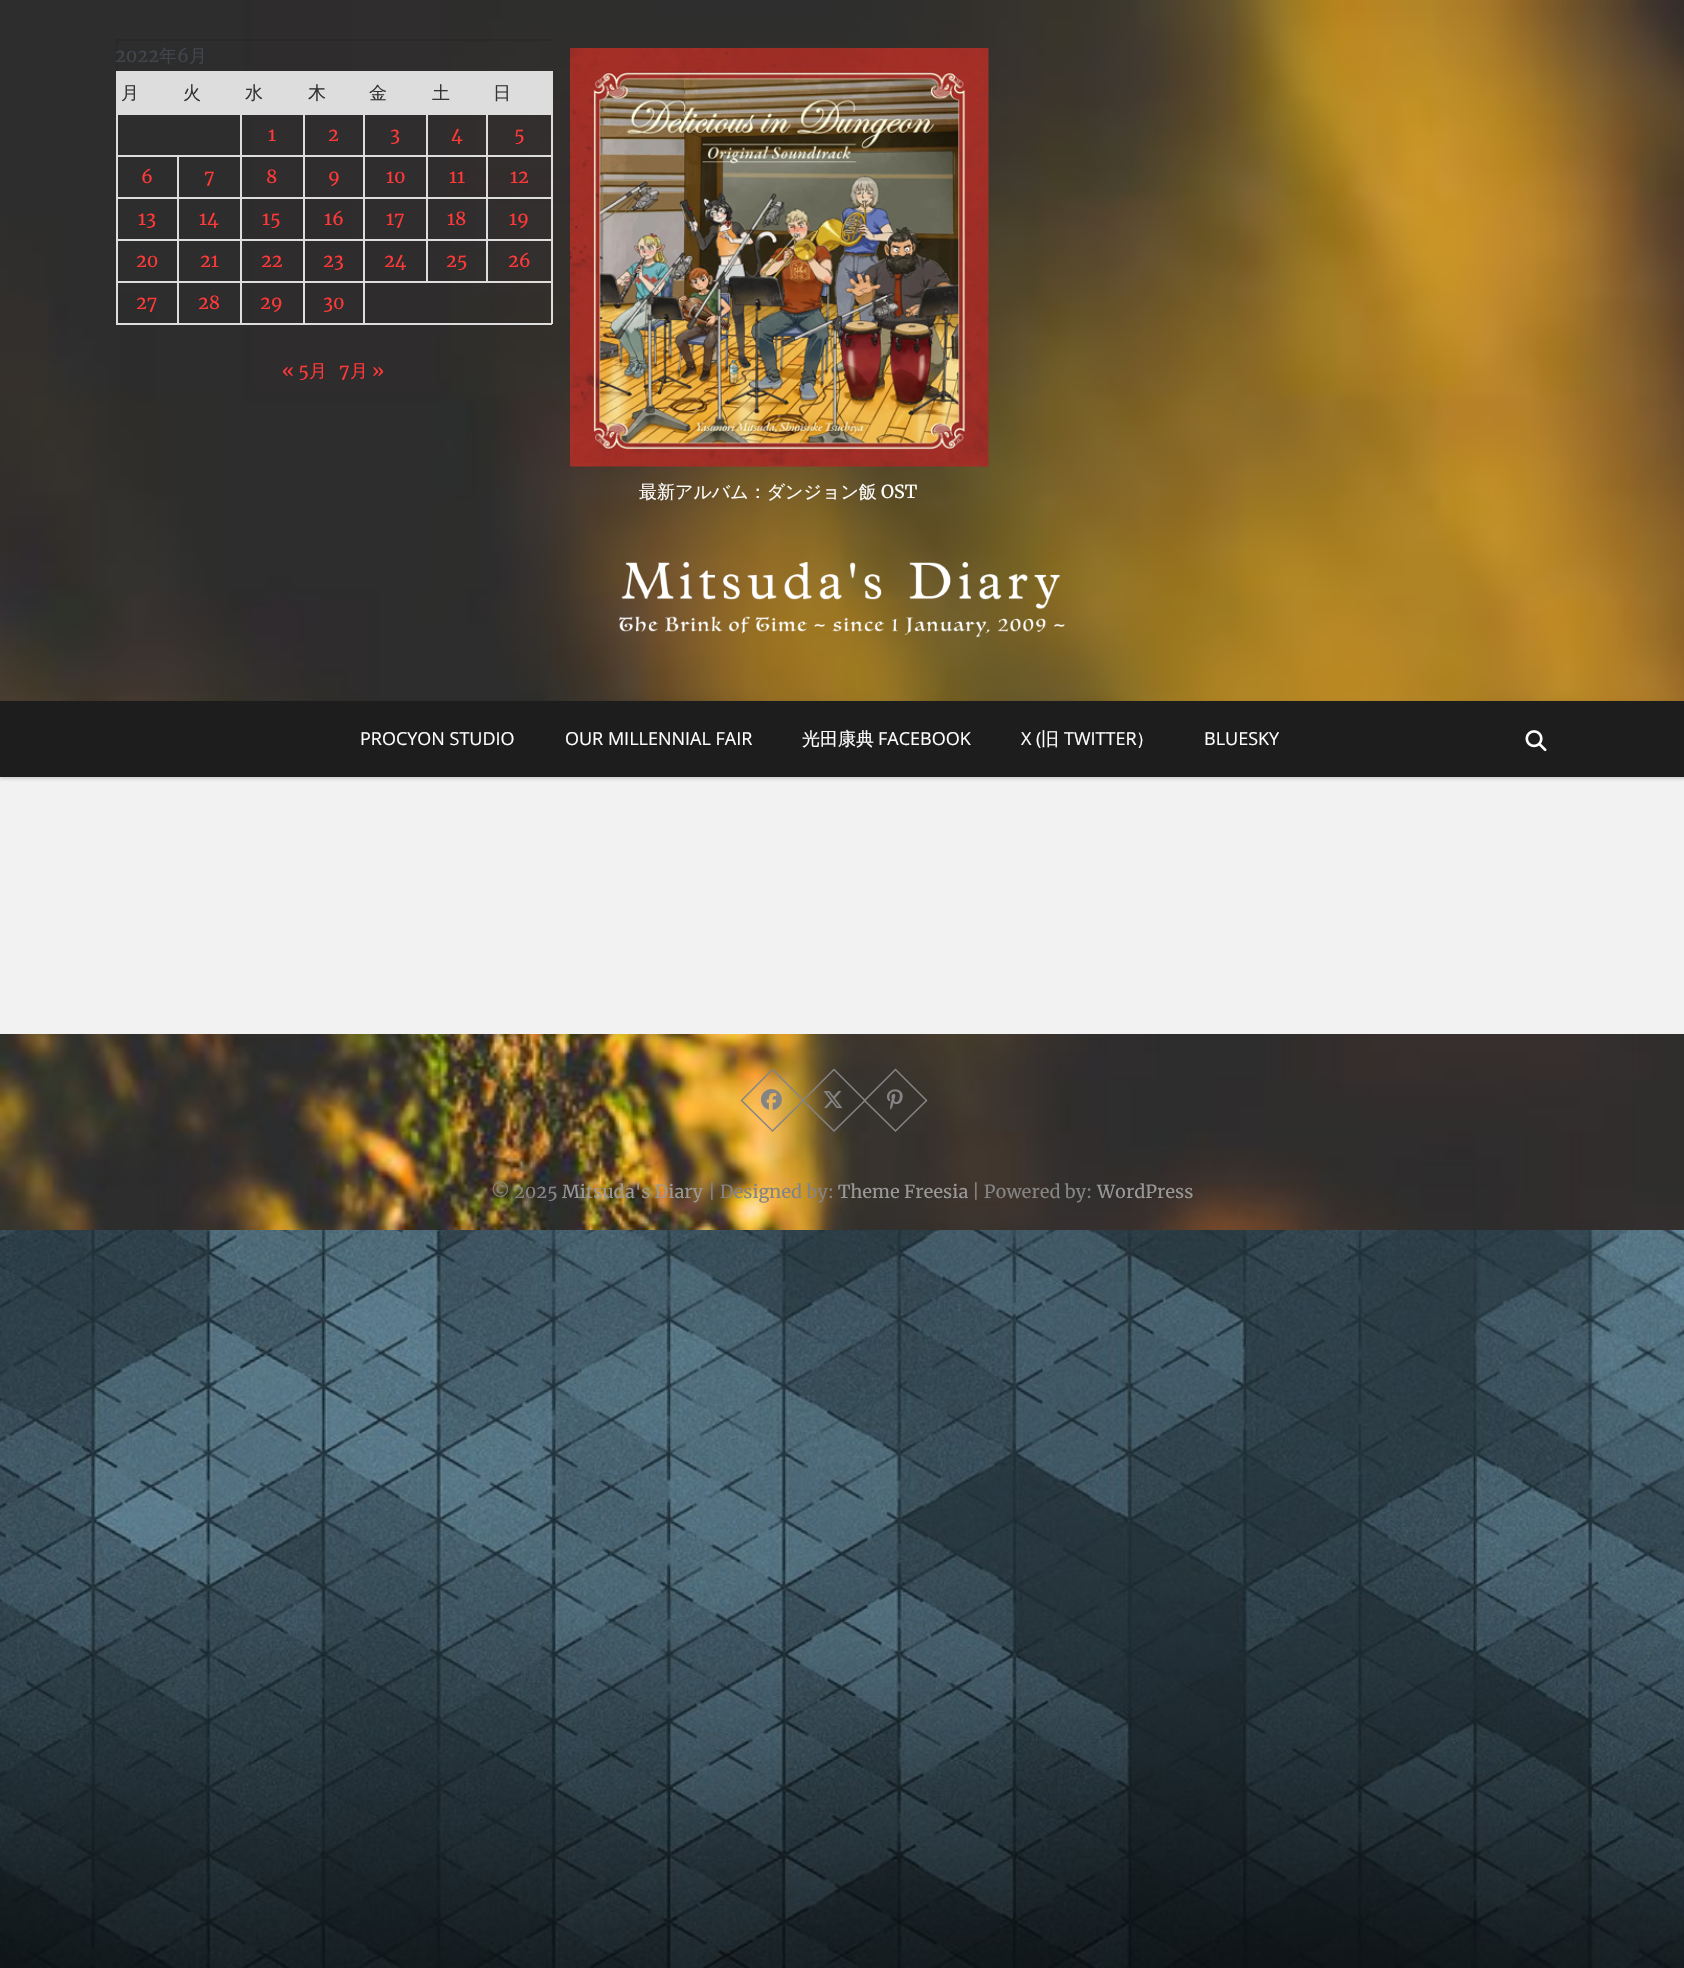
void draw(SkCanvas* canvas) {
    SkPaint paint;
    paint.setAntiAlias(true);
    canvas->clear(0xFFFFFFFF);
    canvas->drawImageRect(SkImages::DeferredFromEncodedData(SkData::MakeFromFileName("img1.png")), SkRect::MakeXYWH(0, 1230, 1684, 738), SkSamplingOptions());
    canvas->drawImageRect(SkImages::DeferredFromEncodedData(SkData::MakeFromFileName("img2.png")), SkRect::MakeXYWH(0, 0, 1684, 701), SkSamplingOptions());
    paint.setColor(0x1A000000);
    canvas->drawRect(SkRect::MakeXYWH(116, 39, 436, 2), paint);
    canvas->drawRect(SkRect::MakeXYWH(116, 39, 2, 32), paint);
    SkFont font1(fontMgr->matchFamilyStyle("Merriweather", SkFontStyle::Normal()), 18);
    font1.setSubpixel(true);
    paint.setColor(0xFF40464D);
    canvas->drawString("2022", 115, 62, font1, paint);
    SkFont font2(fontMgr->matchFamilyStyle("WenQuanYi Zen Hei", SkFontStyle(500, SkFontStyle::kNormal_Width, SkFontStyle::kUpright_Slant)), 18);
    font2.setSubpixel(true);
    canvas->drawString("年", 159, 62, font2, paint);
    canvas->drawString("6", 177, 62, font1, paint);
    canvas->drawString("月", 189, 62, font2, paint);
    paint.setColor(0xFFDDDDDD);
    canvas->drawRect(SkRect::MakeXYWH(118, 73, 433, 40), paint);
    canvas->drawRect(SkRect::MakeXYWH(116, 71, 436, 2), paint);
    canvas->drawRect(SkRect::MakeXYWH(486, 113, 66, 2), paint);
    canvas->drawRect(SkRect::MakeXYWH(486, 155, 66, 2), paint);
    canvas->drawRect(SkRect::MakeXYWH(486, 197, 66, 2), paint);
    canvas->drawRect(SkRect::MakeXYWH(486, 239, 66, 2), paint);
    canvas->drawRect(SkRect::MakeXYWH(363, 281, 189, 2), paint);
    canvas->drawRect(SkRect::MakeXYWH(486, 239, 2, 43), paint);
    canvas->drawRect(SkRect::MakeXYWH(426, 239, 62, 2), paint);
    canvas->drawRect(SkRect::MakeXYWH(486, 197, 2, 43), paint);
    canvas->drawRect(SkRect::MakeXYWH(426, 197, 62, 2), paint);
    canvas->drawRect(SkRect::MakeXYWH(486, 155, 2, 43), paint);
    canvas->drawRect(SkRect::MakeXYWH(426, 155, 62, 2), paint);
    canvas->drawRect(SkRect::MakeXYWH(486, 113, 2, 43), paint);
    canvas->drawRect(SkRect::MakeXYWH(426, 113, 62, 2), paint);
    canvas->drawRect(SkRect::MakeXYWH(426, 239, 2, 43), paint);
    canvas->drawRect(SkRect::MakeXYWH(363, 239, 65, 2), paint);
    canvas->drawRect(SkRect::MakeXYWH(426, 197, 2, 43), paint);
    canvas->drawRect(SkRect::MakeXYWH(363, 197, 65, 2), paint);
    canvas->drawRect(SkRect::MakeXYWH(426, 155, 2, 43), paint);
    canvas->drawRect(SkRect::MakeXYWH(363, 155, 65, 2), paint);
    canvas->drawRect(SkRect::MakeXYWH(426, 113, 2, 43), paint);
    canvas->drawRect(SkRect::MakeXYWH(363, 113, 65, 2), paint);
    canvas->drawRect(SkRect::MakeXYWH(551, 281, 2, 43), paint);
    canvas->drawRect(SkRect::MakeXYWH(363, 323, 189, 2), paint);
    canvas->drawRect(SkRect::MakeXYWH(363, 281, 2, 43), paint);
    canvas->drawRect(SkRect::MakeXYWH(303, 281, 62, 2), paint);
    canvas->drawRect(SkRect::MakeXYWH(363, 239, 2, 43), paint);
    canvas->drawRect(SkRect::MakeXYWH(303, 239, 62, 2), paint);
    canvas->drawRect(SkRect::MakeXYWH(363, 197, 2, 43), paint);
    canvas->drawRect(SkRect::MakeXYWH(303, 197, 62, 2), paint);
    canvas->drawRect(SkRect::MakeXYWH(363, 155, 2, 43), paint);
    canvas->drawRect(SkRect::MakeXYWH(303, 155, 62, 2), paint);
    canvas->drawRect(SkRect::MakeXYWH(363, 113, 2, 43), paint);
    canvas->drawRect(SkRect::MakeXYWH(303, 113, 62, 2), paint);
    canvas->drawRect(SkRect::MakeXYWH(303, 323, 62, 2), paint);
    canvas->drawRect(SkRect::MakeXYWH(303, 281, 2, 43), paint);
    canvas->drawRect(SkRect::MakeXYWH(240, 281, 65, 2), paint);
    canvas->drawRect(SkRect::MakeXYWH(303, 239, 2, 43), paint);
    canvas->drawRect(SkRect::MakeXYWH(240, 239, 65, 2), paint);
    canvas->drawRect(SkRect::MakeXYWH(303, 197, 2, 43), paint);
    canvas->drawRect(SkRect::MakeXYWH(240, 197, 65, 2), paint);
    canvas->drawRect(SkRect::MakeXYWH(303, 155, 2, 43), paint);
    canvas->drawRect(SkRect::MakeXYWH(240, 155, 65, 2), paint);
    canvas->drawRect(SkRect::MakeXYWH(303, 113, 2, 43), paint);
    canvas->drawRect(SkRect::MakeXYWH(240, 113, 65, 2), paint);
    canvas->drawRect(SkRect::MakeXYWH(240, 323, 65, 2), paint);
    canvas->drawRect(SkRect::MakeXYWH(240, 281, 2, 43), paint);
    canvas->drawRect(SkRect::MakeXYWH(177, 281, 65, 2), paint);
    canvas->drawRect(SkRect::MakeXYWH(240, 239, 2, 43), paint);
    canvas->drawRect(SkRect::MakeXYWH(177, 239, 65, 2), paint);
    canvas->drawRect(SkRect::MakeXYWH(240, 197, 2, 43), paint);
    canvas->drawRect(SkRect::MakeXYWH(177, 197, 65, 2), paint);
    canvas->drawRect(SkRect::MakeXYWH(240, 155, 2, 43), paint);
    canvas->drawRect(SkRect::MakeXYWH(177, 155, 65, 2), paint);
    canvas->drawRect(SkRect::MakeXYWH(240, 113, 2, 43), paint);
    canvas->drawRect(SkRect::MakeXYWH(116, 113, 126, 2), paint);
    canvas->drawRect(SkRect::MakeXYWH(177, 323, 65, 2), paint);
    canvas->drawRect(SkRect::MakeXYWH(177, 281, 2, 43), paint);
    canvas->drawRect(SkRect::MakeXYWH(116, 281, 63, 2), paint);
    canvas->drawRect(SkRect::MakeXYWH(177, 239, 2, 43), paint);
    canvas->drawRect(SkRect::MakeXYWH(116, 239, 63, 2), paint);
    canvas->drawRect(SkRect::MakeXYWH(177, 197, 2, 43), paint);
    canvas->drawRect(SkRect::MakeXYWH(116, 197, 63, 2), paint);
    canvas->drawRect(SkRect::MakeXYWH(177, 155, 2, 43), paint);
    canvas->drawRect(SkRect::MakeXYWH(116, 155, 63, 2), paint);
    canvas->drawRect(SkRect::MakeXYWH(116, 323, 63, 2), paint);
    canvas->drawRect(SkRect::MakeXYWH(116, 281, 2, 43), paint);
    canvas->drawRect(SkRect::MakeXYWH(116, 239, 2, 43), paint);
    canvas->drawRect(SkRect::MakeXYWH(116, 197, 2, 43), paint);
    canvas->drawRect(SkRect::MakeXYWH(116, 155, 2, 43), paint);
    canvas->drawRect(SkRect::MakeXYWH(116, 113, 2, 43), paint);
    canvas->drawRect(SkRect::MakeXYWH(116, 71, 2, 43), paint);
    paint.setColor(0xFF333333);
    canvas->drawString("月", 121, 99, font2, paint);
    canvas->drawString("火", 183, 99, font2, paint);
    canvas->drawString("水", 245, 99, font2, paint);
    canvas->drawString("木", 308, 99, font2, paint);
    canvas->drawString("金", 369, 99, font2, paint);
    canvas->drawString("土", 432, 99, font2, paint);
    paint.setColor(0xFFDDDDDD);
    canvas->drawRect(SkRect::MakeXYWH(551, 239, 2, 43), paint);
    canvas->drawRect(SkRect::MakeXYWH(551, 197, 2, 43), paint);
    canvas->drawRect(SkRect::MakeXYWH(551, 155, 2, 43), paint);
    canvas->drawRect(SkRect::MakeXYWH(551, 113, 2, 43), paint);
    canvas->drawRect(SkRect::MakeXYWH(551, 71, 2, 43), paint);
    paint.setColor(0xFF333333);
    canvas->drawString("日", 493, 99, font2, paint);
    paint.setColor(0xFFFF3838);
    canvas->drawString("1", 268, 141, font1, paint);
    canvas->drawString("2", 328, 141, font1, paint);
    canvas->drawString("3", 390, 141, font1, paint);
    canvas->drawString("4", 451, 141, font1, paint);
    canvas->drawString("5", 514, 141, font1, paint);
    canvas->drawString("6", 141, 183, font1, paint);
    canvas->drawString("7", 204, 183, font1, paint);
    canvas->drawString("8", 266, 183, font1, paint);
    canvas->drawString("9", 328, 183, font1, paint);
    canvas->drawString("10", 386, 183, font1, paint);
    canvas->drawString("11", 449, 183, font1, paint);
    canvas->drawString("12", 510, 183, font1, paint);
    canvas->drawString("13", 138, 225, font1, paint);
    canvas->drawString("14", 199, 225, font1, paint);
    canvas->drawString("15", 262, 225, font1, paint);
    canvas->drawString("16", 324, 225, font1, paint);
    canvas->drawString("17", 386, 225, font1, paint);
    canvas->drawString("18", 447, 225, font1, paint);
    canvas->drawString("19", 509, 225, font1, paint);
    canvas->drawString("20", 136, 267, font1, paint);
    canvas->drawString("21", 200, 267, font1, paint);
    canvas->drawString("22", 261, 267, font1, paint);
    canvas->drawString("23", 323, 267, font1, paint);
    canvas->drawString("24", 384, 267, font1, paint);
    canvas->drawString("25", 446, 267, font1, paint);
    canvas->drawString("26", 508, 267, font1, paint);
    canvas->drawString("27", 136, 309, font1, paint);
    canvas->drawString("28", 198, 309, font1, paint);
    canvas->drawString("29", 260, 309, font1, paint);
    canvas->drawString("30", 323, 309, font1, paint);
    canvas->drawString("« 5", 282, 377, font1, paint);
    canvas->drawString("月", 309, 377, font2, paint);
    canvas->drawString("7", 339, 377, font1, paint);
    canvas->drawString("月", 350, 377, font2, paint);
    canvas->drawString("»", 372, 377, font1, paint);
    canvas->drawImageRect(SkImages::DeferredFromEncodedData(SkData::MakeFromFileName("img3.png")), SkRect::MakeXYWH(570, 48, 419, 419), SkSamplingOptions());
    paint.setColor(0xFFFFFFFF);
    canvas->drawString("最新アルバム：ダンジョン飯", 639, 498, font2, paint);
    canvas->drawString("OST", 881, 498, font1, paint);
    canvas->drawImageRect(SkImages::DeferredFromEncodedData(SkData::MakeFromFileName("img4.png")), SkRect::MakeXYWH(618, 562, 447, 76), SkSamplingOptions());
    paint.setColor(0xFFF2F2F2);
    canvas->drawRect(SkRect::MakeXYWH(0, 777, 1684, 257), paint);
    paint.setColor(0x26000000);
    paint.setMaskFilter(SkMaskFilter::MakeBlur(kNormal_SkBlurStyle, 1.5f));
    canvas->drawRect(SkRect::MakeXYWH(0, 702, 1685, 77), paint);
    paint.setMaskFilter(nullptr);
    paint.setColor(0xFF1D1D1D);
    canvas->drawRect(SkRect::MakeXYWH(0, 701, 1684, 76), paint);
    SkFont font3(fontMgr->matchFamilyStyle("Open Sans", SkFontStyle::Normal()), 18);
    font3.setSubpixel(true);
    paint.setColor(0xFFFFFFFF);
    canvas->drawString("PROCYON STUDIO", 360, 745, font3, paint);
    canvas->drawString("OUR MILLENNIAL FAIR", 565, 745, font3, paint);
    canvas->drawString("光田康典", 802, 745, font2, paint);
    canvas->drawString("FACEBOOK", 878, 745, font3, paint);
    canvas->drawString("X (", 1021, 745, font3, paint);
    canvas->drawString("旧", 1041, 745, font2, paint);
    canvas->drawString("TWITTER", 1064, 745, font3, paint);
    canvas->drawString("）", 1136, 745, font2, paint);
    canvas->drawString("BLUESKY", 1204, 745, font3, paint);
    canvas->drawImageRect(SkImages::DeferredFromEncodedData(SkData::MakeFromFileName("img5.png")), SkRect::MakeXYWH(1525, 730, 22, 22), SkSamplingOptions());
    canvas->drawImageRect(SkImages::DeferredFromEncodedData(SkData::MakeFromFileName("img6.png")), SkRect::MakeXYWH(0, 1034, 1684, 196), SkSamplingOptions());
    paint.setStyle(SkPaint::kStroke_Style);
    paint.setStrokeWidth(1.5f);
    paint.setColor(0xFF848484);
    canvas->drawPath(SkPathBuilder().moveTo(741.5f, 1100.5f).lineTo(772.5f, 1069.5f).lineTo(803.5f, 1100.5f).lineTo(772.5f, 1131).close().detach(), paint);
    canvas->drawImageRect(SkImages::DeferredFromEncodedData(SkData::MakeFromFileName("img7.png")), SkRect::MakeXYWH(760, 1089, 22, 21), SkSamplingOptions());
    canvas->drawPath(SkPathBuilder().moveTo(803, 1100.5f).lineTo(834, 1069.5f).lineTo(865, 1100.5f).lineTo(834, 1131).close().detach(), paint);
    canvas->drawImageRect(SkImages::DeferredFromEncodedData(SkData::MakeFromFileName("img8.png")), SkRect::MakeXYWH(823, 1091, 20, 18), SkSamplingOptions());
    canvas->drawPath(SkPathBuilder().moveTo(864.5f, 1100.5f).lineTo(895.5f, 1069.5f).lineTo(926.5f, 1100.5f).lineTo(895.5f, 1131).close().detach(), paint);
    canvas->drawImageRect(SkImages::DeferredFromEncodedData(SkData::MakeFromFileName("img9.png")), SkRect::MakeXYWH(887, 1089, 16, 21), SkSamplingOptions());
    paint.setStyle(SkPaint::kFill_Style);
    canvas->drawString("© 2025", 491, 1198, font1, paint);
    paint.setColor(0xFF999999);
    canvas->drawString("Mitsuda's Diary", 562, 1198, font1, paint);
    paint.setColor(0xFF848484);
    canvas->drawString("| Designed by:", 708, 1198, font1, paint);
    paint.setColor(0xFF999999);
    canvas->drawString("Theme Freesia", 838, 1198, font1, paint);
    paint.setColor(0xFF848484);
    canvas->drawString("| Powered by:", 972, 1198, font1, paint);
    paint.setColor(0xFF999999);
    canvas->drawString("WordPress", 1097, 1198, font1, paint);
}
